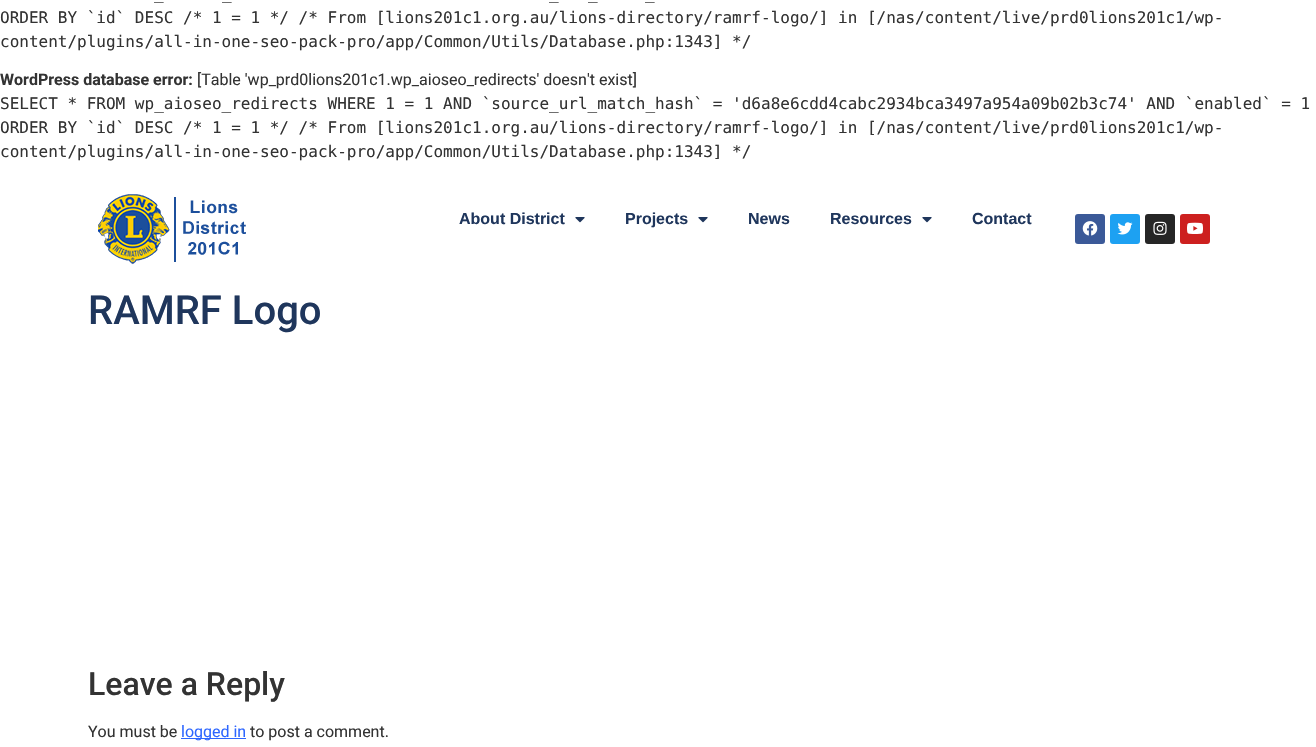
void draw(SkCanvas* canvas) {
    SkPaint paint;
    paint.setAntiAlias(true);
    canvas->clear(0xFFFFFFFF);
    SkFont font1(fontMgr->matchFamilyStyle("DejaVu Sans Mono", SkFontStyle::Normal()), 16);
    font1.setSubpixel(true);
    paint.setColor(0xFF333333);
    canvas->drawString("_", 154, -1, font1, paint);
    canvas->drawString("_", 222, -1, font1, paint);
    canvas->drawString("_", 549, -1, font1, paint);
    canvas->drawString("_", 588, -1, font1, paint);
    canvas->drawString("_", 645, -1, font1, paint);
    canvas->drawString("ORDER BY `id` DESC /* 1 = 1 */ /* From [lions201c1.org.au/lions-directory/ramrf-logo/] in [/nas/content/live/prd0lions201c1/wp-", 0, 23, font1, paint);
    canvas->drawString("content/plugins/all-in-one-seo-pack-pro/app/Common/Utils/Database.php:1343] */", 0, 47, font1, paint);
    SkFont font2(fontMgr->matchFamilyStyle("Roboto", SkFontStyle::Bold()), 16);
    font2.setSubpixel(true);
    canvas->drawString("WordPress database error:", 0, 85, font2, paint);
    SkFont font3(fontMgr->matchFamilyStyle("Roboto", SkFontStyle::Normal()), 16);
    font3.setSubpixel(true);
    canvas->drawString("[Table 'wp_prd0lions201c1.wp_aioseo_redirects' doesn't exist]", 197, 85, font3, paint);
    canvas->drawString("SELECT * FROM wp_aioseo_redirects WHERE 1 = 1 AND `source_url_match_hash` = 'd6a8e6cdd4cabc2934bca3497a954a09b02b3c74' AND `enabled` = 1", 0, 109, font1, paint);
    canvas->drawString("ORDER BY `id` DESC /* 1 = 1 */ /* From [lions201c1.org.au/lions-directory/ramrf-logo/] in [/nas/content/live/prd0lions201c1/wp-", 0, 133, font1, paint);
    canvas->drawString("content/plugins/all-in-one-seo-pack-pro/app/Common/Utils/Database.php:1343] */", 0, 157, font1, paint);
    canvas->drawImageRect(SkImages::DeferredFromEncodedData(SkData::MakeFromFileName("img1.png")), SkRect::MakeXYWH(98, 194, 148, 71), SkSamplingOptions());
    SkFont font4(fontMgr->matchFamilyStyle("Liberation Sans", SkFontStyle::Bold()), 16);
    font4.setSubpixel(true);
    paint.setColor(0xFF1F365C);
    canvas->drawString("About District", 459, 224, font4, paint);
    canvas->drawImageRect(SkImages::DeferredFromEncodedData(SkData::MakeFromFileName("img2.png")), SkRect::MakeXYWH(575, 217, 10, 6), SkSamplingOptions());
    canvas->drawString("Projects", 625, 224, font4, paint);
    canvas->drawImageRect(SkImages::DeferredFromEncodedData(SkData::MakeFromFileName("img2.png")), SkRect::MakeXYWH(698, 217, 10, 6), SkSamplingOptions());
    canvas->drawString("News", 748, 224, font4, paint);
    canvas->drawString("Resources", 830, 224, font4, paint);
    canvas->drawImageRect(SkImages::DeferredFromEncodedData(SkData::MakeFromFileName("img2.png")), SkRect::MakeXYWH(922, 217, 10, 6), SkSamplingOptions());
    canvas->drawString("Contact", 972, 224, font4, paint);
    paint.setColor(0xFF3B5998);
    canvas->drawRoundRect(SkRect::MakeXYWH(1075, 214, 30, 30), 3, 3, paint);
    canvas->drawImageRect(SkImages::DeferredFromEncodedData(SkData::MakeFromFileName("img3.png")), SkRect::MakeXYWH(1082, 221, 16, 15), SkSamplingOptions());
    paint.setColor(0xFF1DA1F2);
    canvas->drawRoundRect(SkRect::MakeXYWH(1110, 214, 30, 30), 3, 3, paint);
    canvas->drawImageRect(SkImages::DeferredFromEncodedData(SkData::MakeFromFileName("img4.png")), SkRect::MakeXYWH(1117, 222, 16, 13), SkSamplingOptions());
    paint.setColor(0xFF262626);
    canvas->drawRoundRect(SkRect::MakeXYWH(1145, 214, 30, 30), 3, 3, paint);
    canvas->drawImageRect(SkImages::DeferredFromEncodedData(SkData::MakeFromFileName("img5.png")), SkRect::MakeXYWH(1153, 221, 14, 14), SkSamplingOptions());
    paint.setColor(0xFFCD201F);
    canvas->drawRoundRect(SkRect::MakeXYWH(1180, 214, 30, 30), 3, 3, paint);
    canvas->drawImageRect(SkImages::DeferredFromEncodedData(SkData::MakeFromFileName("img6.png")), SkRect::MakeXYWH(1187, 222, 16, 12), SkSamplingOptions());
    SkFont font5(fontMgr->matchFamilyStyle("Roboto", SkFontStyle(500, SkFontStyle::kNormal_Width, SkFontStyle::kUpright_Slant)), 40);
    font5.setSubpixel(true);
    paint.setColor(0xFF1F365C);
    canvas->drawString("RAMRF Logo", 88, 324, font5, paint);
    SkFont font6(fontMgr->matchFamilyStyle("Roboto", SkFontStyle(500, SkFontStyle::kNormal_Width, SkFontStyle::kUpright_Slant)), 32);
    font6.setSubpixel(true);
    paint.setColor(0xFF333333);
    canvas->drawString("Leave a Reply", 88, 695, font6, paint);
    canvas->drawString("You must be", 88, 737, font3, paint);
    paint.setColor(0xFF2D66FF);
    canvas->drawRect(SkRect::MakeXYWH(181, 738, 65, 1), paint);
    canvas->drawString("logged in", 181, 737, font3, paint);
    paint.setColor(0xFF333333);
    canvas->drawString("to post a comment.", 250, 737, font3, paint);
}
